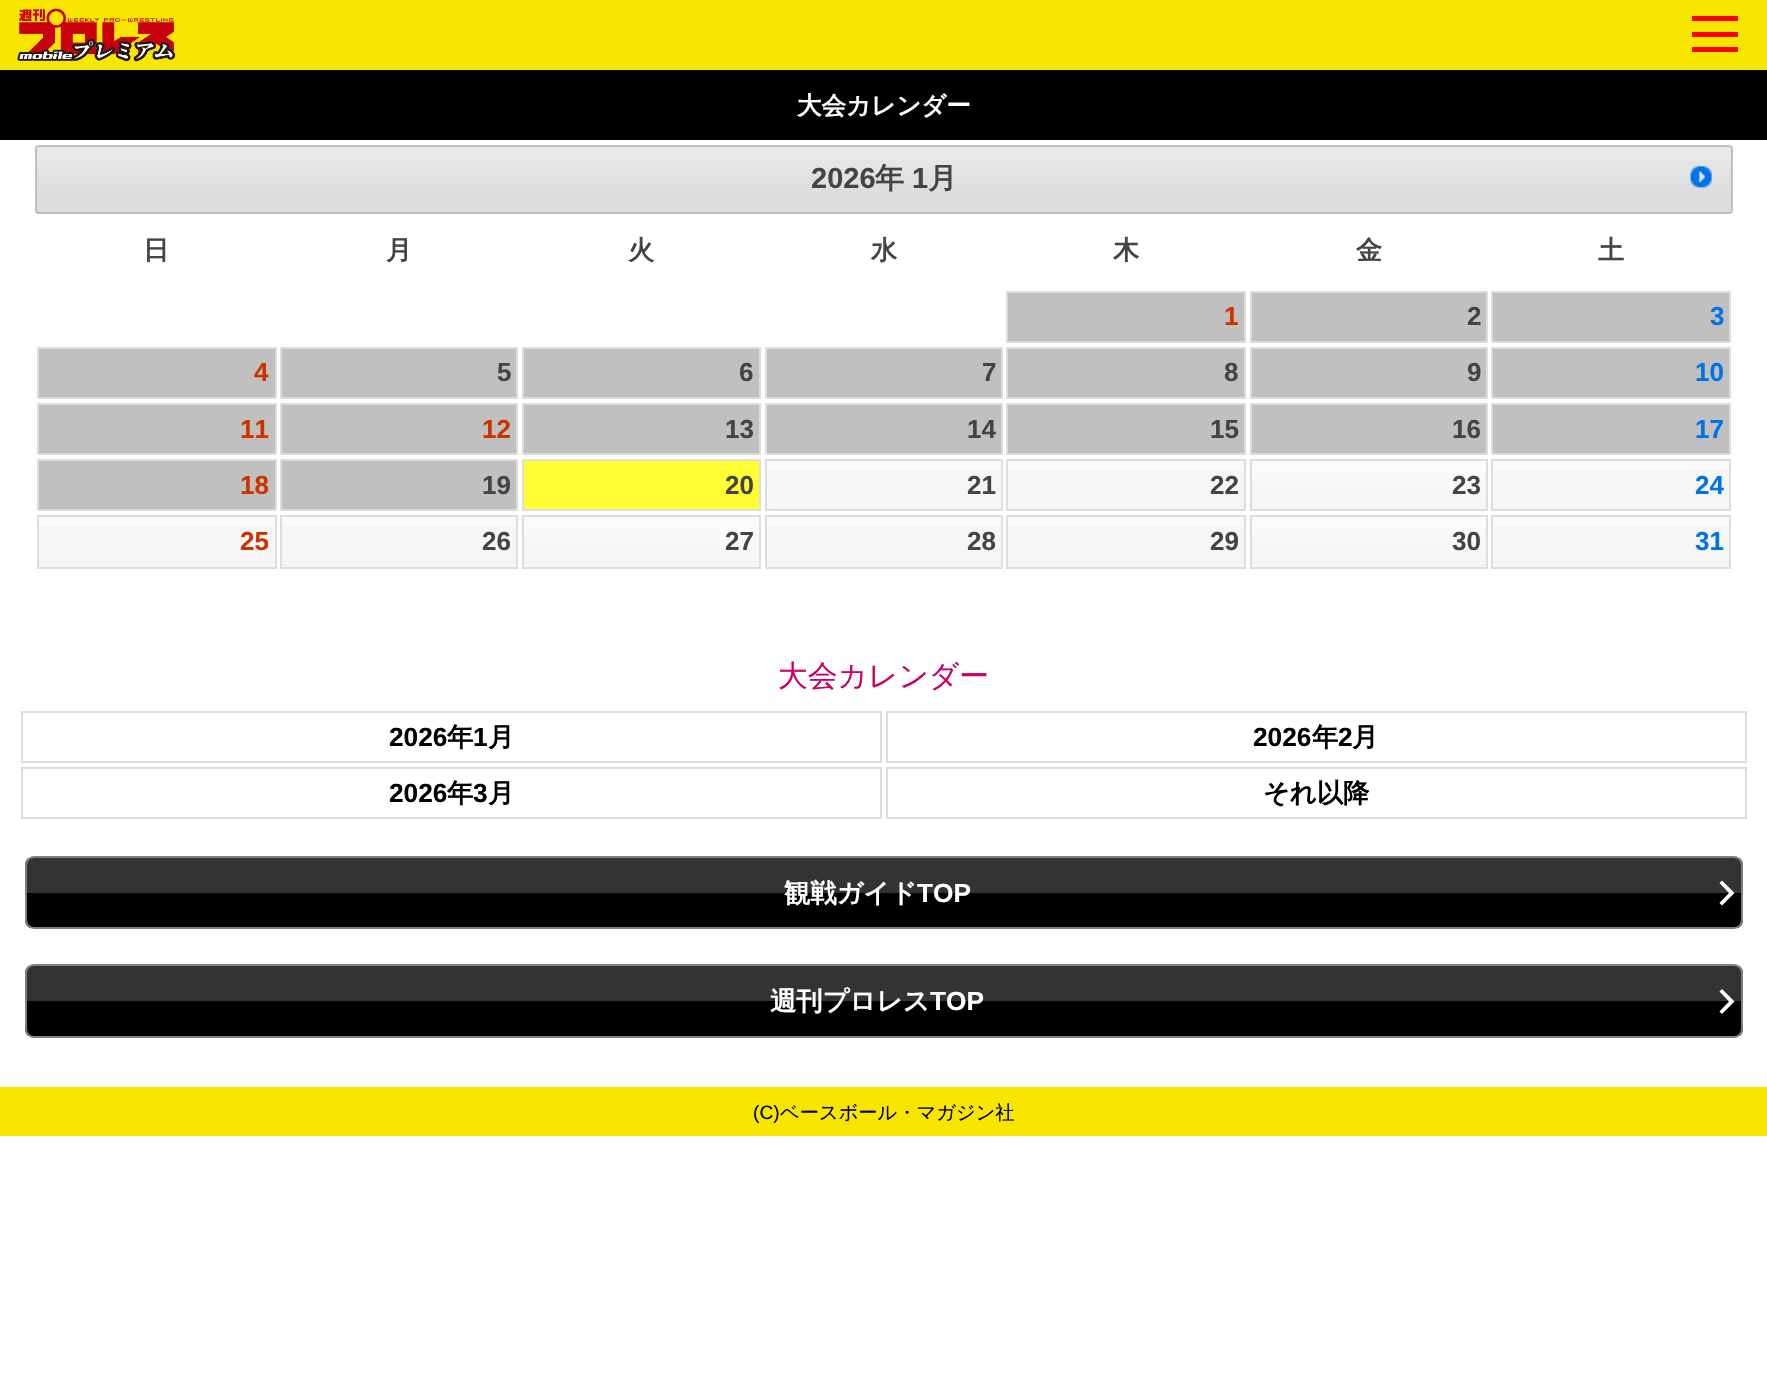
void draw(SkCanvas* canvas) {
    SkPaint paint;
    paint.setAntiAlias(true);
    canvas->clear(0xFFFFFFFF);
    paint.setColor(0xFFF9E600);
    canvas->drawRect(SkRect::MakeXYWH(0, 0, 1767, 70), paint);
    paint.setColor(0xFFFF0000);
    canvas->drawRect(SkRect::MakeXYWH(1692, 16, 46, 5), paint);
    canvas->drawRect(SkRect::MakeXYWH(1692, 32, 46, 5), paint);
    canvas->drawRect(SkRect::MakeXYWH(1692, 47, 46, 5), paint);
    canvas->drawImageRect(SkImages::DeferredFromEncodedData(SkData::MakeFromFileName("img1.png")), SkRect::MakeXYWH(17, 8, 158, 54), SkSamplingOptions());
    paint.setColor(0xFF000000);
    canvas->drawRect(SkRect::MakeXYWH(0, 70, 1767, 70), paint);
    SkFont font1(fontMgr->matchFamilyStyle("WenQuanYi Zen Hei", SkFontStyle::Bold()), 24.5f);
    font1.setSubpixel(true);
    paint.setColor(0xFFFFFFFF);
    canvas->drawString("大会カレンダー", 797, 114, font1, paint);
    canvas->drawImageRect(SkImages::DeferredFromEncodedData(SkData::MakeFromFileName("img2.png")), SkRect::MakeXYWH(35, 145, 1697, 68), SkSamplingOptions());
    paint.setStyle(SkPaint::kStroke_Style);
    paint.setStrokeWidth(2);
    paint.setColor(0xFFC0C0C0);
    canvas->drawRoundRect(SkRect::MakeXYWH(36, 146, 1696, 67), 3, 3, paint);
    SkFont font2(fontMgr->matchFamilyStyle("Liberation Sans", SkFontStyle::Bold()), 29);
    font2.setSubpixel(true);
    paint.setStyle(SkPaint::kFill_Style);
    paint.setColor(0xFF444444);
    canvas->drawString("2026", 811, 188, font2, paint);
    SkFont font3(fontMgr->matchFamilyStyle("WenQuanYi Zen Hei", SkFontStyle::Bold()), 29);
    font3.setSubpixel(true);
    canvas->drawString("年", 875, 188, font3, paint);
    canvas->drawString("1", 912, 188, font2, paint);
    canvas->drawString("月", 928, 188, font3, paint);
    canvas->drawImageRect(SkImages::DeferredFromEncodedData(SkData::MakeFromFileName("img3.png")), SkRect::MakeXYWH(1690, 165, 22, 23), SkSamplingOptions());
    SkFont font4(fontMgr->matchFamilyStyle("WenQuanYi Zen Hei", SkFontStyle::Bold()), 26);
    font4.setSubpixel(true);
    canvas->drawString("日", 143, 259, font4, paint);
    canvas->drawString("月", 386, 259, font4, paint);
    canvas->drawString("火", 628, 259, font4, paint);
    canvas->drawString("水", 871, 259, font4, paint);
    canvas->drawString("木", 1113, 259, font4, paint);
    canvas->drawString("金", 1356, 259, font4, paint);
    canvas->drawString("土", 1598, 259, font4, paint);
    paint.setColor(0xFFC0C0C0);
    canvas->drawRect(SkRect::MakeXYWH(1007, 292, 238, 50), paint);
    paint.setStyle(SkPaint::kStroke_Style);
    paint.setColor(0xFFDDDDDD);
    canvas->drawRect(SkRect::MakeXYWH(1007, 292, 238, 50), paint);
    SkFont font5(fontMgr->matchFamilyStyle("Liberation Sans", SkFontStyle::Bold()), 26);
    font5.setSubpixel(true);
    paint.setStyle(SkPaint::kFill_Style);
    paint.setColor(0xFFCC3300);
    canvas->drawString("1", 1224, 325, font5, paint);
    paint.setColor(0xFFC0C0C0);
    canvas->drawRect(SkRect::MakeXYWH(1251, 292, 236, 50), paint);
    paint.setStyle(SkPaint::kStroke_Style);
    paint.setColor(0xFFDDDDDD);
    canvas->drawRect(SkRect::MakeXYWH(1251, 292, 236, 50), paint);
    paint.setStyle(SkPaint::kFill_Style);
    paint.setColor(0xFF444444);
    canvas->drawString("2", 1467, 325, font5, paint);
    paint.setColor(0xFFC0C0C0);
    canvas->drawRect(SkRect::MakeXYWH(1492, 292, 238, 50), paint);
    paint.setStyle(SkPaint::kStroke_Style);
    paint.setColor(0xFFDDDDDD);
    canvas->drawRect(SkRect::MakeXYWH(1492, 292, 238, 50), paint);
    paint.setStyle(SkPaint::kFill_Style);
    paint.setColor(0xFF0073EA);
    canvas->drawString("3", 1710, 325, font5, paint);
    paint.setColor(0xFFC0C0C0);
    canvas->drawRect(SkRect::MakeXYWH(38, 348, 238, 50), paint);
    paint.setStyle(SkPaint::kStroke_Style);
    paint.setColor(0xFFDDDDDD);
    canvas->drawRect(SkRect::MakeXYWH(38, 348, 238, 50), paint);
    paint.setStyle(SkPaint::kFill_Style);
    paint.setColor(0xFFCC3300);
    canvas->drawString("4", 254, 381, font5, paint);
    paint.setColor(0xFFC0C0C0);
    canvas->drawRect(SkRect::MakeXYWH(281, 348, 236, 50), paint);
    paint.setStyle(SkPaint::kStroke_Style);
    paint.setColor(0xFFDDDDDD);
    canvas->drawRect(SkRect::MakeXYWH(281, 348, 236, 50), paint);
    paint.setStyle(SkPaint::kFill_Style);
    paint.setColor(0xFF444444);
    canvas->drawString("5", 497, 381, font5, paint);
    paint.setColor(0xFFC0C0C0);
    canvas->drawRect(SkRect::MakeXYWH(523, 348, 237, 50), paint);
    paint.setStyle(SkPaint::kStroke_Style);
    paint.setColor(0xFFDDDDDD);
    canvas->drawRect(SkRect::MakeXYWH(523, 348, 237, 50), paint);
    paint.setStyle(SkPaint::kFill_Style);
    paint.setColor(0xFF444444);
    canvas->drawString("6", 739, 381, font5, paint);
    paint.setColor(0xFFC0C0C0);
    canvas->drawRect(SkRect::MakeXYWH(766, 348, 236, 50), paint);
    paint.setStyle(SkPaint::kStroke_Style);
    paint.setColor(0xFFDDDDDD);
    canvas->drawRect(SkRect::MakeXYWH(766, 348, 236, 50), paint);
    paint.setStyle(SkPaint::kFill_Style);
    paint.setColor(0xFF444444);
    canvas->drawString("7", 982, 381, font5, paint);
    paint.setColor(0xFFC0C0C0);
    canvas->drawRect(SkRect::MakeXYWH(1007, 348, 238, 50), paint);
    paint.setStyle(SkPaint::kStroke_Style);
    paint.setColor(0xFFDDDDDD);
    canvas->drawRect(SkRect::MakeXYWH(1007, 348, 238, 50), paint);
    paint.setStyle(SkPaint::kFill_Style);
    paint.setColor(0xFF444444);
    canvas->drawString("8", 1224, 381, font5, paint);
    paint.setColor(0xFFC0C0C0);
    canvas->drawRect(SkRect::MakeXYWH(1251, 348, 236, 50), paint);
    paint.setStyle(SkPaint::kStroke_Style);
    paint.setColor(0xFFDDDDDD);
    canvas->drawRect(SkRect::MakeXYWH(1251, 348, 236, 50), paint);
    paint.setStyle(SkPaint::kFill_Style);
    paint.setColor(0xFF444444);
    canvas->drawString("9", 1467, 381, font5, paint);
    paint.setColor(0xFFC0C0C0);
    canvas->drawRect(SkRect::MakeXYWH(1492, 348, 238, 50), paint);
    paint.setStyle(SkPaint::kStroke_Style);
    paint.setColor(0xFFDDDDDD);
    canvas->drawRect(SkRect::MakeXYWH(1492, 348, 238, 50), paint);
    paint.setStyle(SkPaint::kFill_Style);
    paint.setColor(0xFF0073EA);
    canvas->drawString("10", 1695, 381, font5, paint);
    paint.setColor(0xFFC0C0C0);
    canvas->drawRect(SkRect::MakeXYWH(38, 404, 238, 50), paint);
    paint.setStyle(SkPaint::kStroke_Style);
    paint.setColor(0xFFDDDDDD);
    canvas->drawRect(SkRect::MakeXYWH(38, 404, 238, 50), paint);
    paint.setStyle(SkPaint::kFill_Style);
    paint.setColor(0xFFCC3300);
    canvas->drawString("11", 240, 438, font5, paint);
    paint.setColor(0xFFC0C0C0);
    canvas->drawRect(SkRect::MakeXYWH(281, 404, 236, 50), paint);
    paint.setStyle(SkPaint::kStroke_Style);
    paint.setColor(0xFFDDDDDD);
    canvas->drawRect(SkRect::MakeXYWH(281, 404, 236, 50), paint);
    paint.setStyle(SkPaint::kFill_Style);
    paint.setColor(0xFFCC3300);
    canvas->drawString("12", 482, 438, font5, paint);
    paint.setColor(0xFFC0C0C0);
    canvas->drawRect(SkRect::MakeXYWH(523, 404, 237, 50), paint);
    paint.setStyle(SkPaint::kStroke_Style);
    paint.setColor(0xFFDDDDDD);
    canvas->drawRect(SkRect::MakeXYWH(523, 404, 237, 50), paint);
    paint.setStyle(SkPaint::kFill_Style);
    paint.setColor(0xFF444444);
    canvas->drawString("13", 725, 438, font5, paint);
    paint.setColor(0xFFC0C0C0);
    canvas->drawRect(SkRect::MakeXYWH(766, 404, 236, 50), paint);
    paint.setStyle(SkPaint::kStroke_Style);
    paint.setColor(0xFFDDDDDD);
    canvas->drawRect(SkRect::MakeXYWH(766, 404, 236, 50), paint);
    paint.setStyle(SkPaint::kFill_Style);
    paint.setColor(0xFF444444);
    canvas->drawString("14", 967, 438, font5, paint);
    paint.setColor(0xFFC0C0C0);
    canvas->drawRect(SkRect::MakeXYWH(1007, 404, 238, 50), paint);
    paint.setStyle(SkPaint::kStroke_Style);
    paint.setColor(0xFFDDDDDD);
    canvas->drawRect(SkRect::MakeXYWH(1007, 404, 238, 50), paint);
    paint.setStyle(SkPaint::kFill_Style);
    paint.setColor(0xFF444444);
    canvas->drawString("15", 1210, 438, font5, paint);
    paint.setColor(0xFFC0C0C0);
    canvas->drawRect(SkRect::MakeXYWH(1251, 404, 236, 50), paint);
    paint.setStyle(SkPaint::kStroke_Style);
    paint.setColor(0xFFDDDDDD);
    canvas->drawRect(SkRect::MakeXYWH(1251, 404, 236, 50), paint);
    paint.setStyle(SkPaint::kFill_Style);
    paint.setColor(0xFF444444);
    canvas->drawString("16", 1452, 438, font5, paint);
    paint.setColor(0xFFC0C0C0);
    canvas->drawRect(SkRect::MakeXYWH(1492, 404, 238, 50), paint);
    paint.setStyle(SkPaint::kStroke_Style);
    paint.setColor(0xFFDDDDDD);
    canvas->drawRect(SkRect::MakeXYWH(1492, 404, 238, 50), paint);
    paint.setStyle(SkPaint::kFill_Style);
    paint.setColor(0xFF0073EA);
    canvas->drawString("17", 1695, 438, font5, paint);
    paint.setColor(0xFFC0C0C0);
    canvas->drawRect(SkRect::MakeXYWH(38, 460, 238, 50), paint);
    paint.setStyle(SkPaint::kStroke_Style);
    paint.setColor(0xFFDDDDDD);
    canvas->drawRect(SkRect::MakeXYWH(38, 460, 238, 50), paint);
    paint.setStyle(SkPaint::kFill_Style);
    paint.setColor(0xFFCC3300);
    canvas->drawString("18", 240, 494, font5, paint);
    paint.setColor(0xFFC0C0C0);
    canvas->drawRect(SkRect::MakeXYWH(281, 460, 236, 50), paint);
    paint.setStyle(SkPaint::kStroke_Style);
    paint.setColor(0xFFDDDDDD);
    canvas->drawRect(SkRect::MakeXYWH(281, 460, 236, 50), paint);
    paint.setStyle(SkPaint::kFill_Style);
    paint.setColor(0xFF444444);
    canvas->drawString("19", 482, 494, font5, paint);
    paint.setColor(0xFFFFFF33);
    canvas->drawRect(SkRect::MakeXYWH(523, 460, 237, 50), paint);
    paint.setStyle(SkPaint::kStroke_Style);
    paint.setColor(0xFFDDDDDD);
    canvas->drawRect(SkRect::MakeXYWH(523, 460, 237, 50), paint);
    paint.setStyle(SkPaint::kFill_Style);
    paint.setColor(0xFF444444);
    canvas->drawString("20", 725, 494, font5, paint);
    paint.setColor(0xFFF6F6F6);
    canvas->drawRect(SkRect::MakeXYWH(767, 470, 234, 39), paint);
    paint.setColor(0xFFFBFBFB);
    canvas->drawRect(SkRect::MakeXYWH(767, 461, 234, 9), paint);
    paint.setStyle(SkPaint::kStroke_Style);
    paint.setColor(0xFFDDDDDD);
    canvas->drawRect(SkRect::MakeXYWH(766, 460, 236, 50), paint);
    paint.setStyle(SkPaint::kFill_Style);
    paint.setColor(0xFF444444);
    canvas->drawString("21", 967, 494, font5, paint);
    paint.setColor(0xFFF6F6F6);
    canvas->drawRect(SkRect::MakeXYWH(1008, 470, 236, 39), paint);
    paint.setColor(0xFFFBFBFB);
    canvas->drawRect(SkRect::MakeXYWH(1008, 461, 236, 9), paint);
    paint.setStyle(SkPaint::kStroke_Style);
    paint.setColor(0xFFDDDDDD);
    canvas->drawRect(SkRect::MakeXYWH(1007, 460, 238, 50), paint);
    paint.setStyle(SkPaint::kFill_Style);
    paint.setColor(0xFF444444);
    canvas->drawString("22", 1210, 494, font5, paint);
    canvas->drawImageRect(SkImages::DeferredFromEncodedData(SkData::MakeFromFileName("img4.png")), SkRect::MakeXYWH(1249, 459, 237, 52), SkSamplingOptions());
    paint.setStyle(SkPaint::kStroke_Style);
    paint.setColor(0xFFDDDDDD);
    canvas->drawRect(SkRect::MakeXYWH(1251, 460, 236, 50), paint);
    paint.setStyle(SkPaint::kFill_Style);
    paint.setColor(0xFF444444);
    canvas->drawString("23", 1452, 494, font5, paint);
    paint.setColor(0xFFF6F6F6);
    canvas->drawRect(SkRect::MakeXYWH(1493, 470, 236, 39), paint);
    paint.setColor(0xFFFBFBFB);
    canvas->drawRect(SkRect::MakeXYWH(1493, 461, 236, 9), paint);
    paint.setStyle(SkPaint::kStroke_Style);
    paint.setColor(0xFFDDDDDD);
    canvas->drawRect(SkRect::MakeXYWH(1492, 460, 238, 50), paint);
    paint.setStyle(SkPaint::kFill_Style);
    paint.setColor(0xFF0073EA);
    canvas->drawString("24", 1695, 494, font5, paint);
    paint.setColor(0xFFF6F6F6);
    canvas->drawRect(SkRect::MakeXYWH(39, 526, 236, 41), paint);
    paint.setColor(0xFFFBFBFB);
    canvas->drawRect(SkRect::MakeXYWH(39, 517, 236, 9), paint);
    paint.setStyle(SkPaint::kStroke_Style);
    paint.setColor(0xFFDDDDDD);
    canvas->drawRect(SkRect::MakeXYWH(38, 516, 238, 52), paint);
    paint.setStyle(SkPaint::kFill_Style);
    paint.setColor(0xFFCC3300);
    canvas->drawString("25", 240, 550, font5, paint);
    paint.setColor(0xFFF6F6F6);
    canvas->drawRect(SkRect::MakeXYWH(282, 526, 234, 41), paint);
    paint.setColor(0xFFFBFBFB);
    canvas->drawRect(SkRect::MakeXYWH(282, 517, 234, 9), paint);
    paint.setStyle(SkPaint::kStroke_Style);
    paint.setColor(0xFFDDDDDD);
    canvas->drawRect(SkRect::MakeXYWH(281, 516, 236, 52), paint);
    paint.setStyle(SkPaint::kFill_Style);
    paint.setColor(0xFF444444);
    canvas->drawString("26", 482, 550, font5, paint);
    canvas->drawImageRect(SkImages::DeferredFromEncodedData(SkData::MakeFromFileName("img5.png")), SkRect::MakeXYWH(521, 515, 238, 53), SkSamplingOptions());
    paint.setStyle(SkPaint::kStroke_Style);
    paint.setColor(0xFFDDDDDD);
    canvas->drawRect(SkRect::MakeXYWH(523, 516, 237, 52), paint);
    paint.setStyle(SkPaint::kFill_Style);
    paint.setColor(0xFF444444);
    canvas->drawString("27", 725, 550, font5, paint);
    paint.setColor(0xFFF6F6F6);
    canvas->drawRect(SkRect::MakeXYWH(767, 526, 234, 41), paint);
    paint.setColor(0xFFFBFBFB);
    canvas->drawRect(SkRect::MakeXYWH(767, 517, 234, 9), paint);
    paint.setStyle(SkPaint::kStroke_Style);
    paint.setColor(0xFFDDDDDD);
    canvas->drawRect(SkRect::MakeXYWH(766, 516, 236, 52), paint);
    paint.setStyle(SkPaint::kFill_Style);
    paint.setColor(0xFF444444);
    canvas->drawString("28", 967, 550, font5, paint);
    paint.setColor(0xFFF6F6F6);
    canvas->drawRect(SkRect::MakeXYWH(1008, 526, 236, 41), paint);
    paint.setColor(0xFFFBFBFB);
    canvas->drawRect(SkRect::MakeXYWH(1008, 517, 236, 9), paint);
    paint.setStyle(SkPaint::kStroke_Style);
    paint.setColor(0xFFDDDDDD);
    canvas->drawRect(SkRect::MakeXYWH(1007, 516, 238, 52), paint);
    paint.setStyle(SkPaint::kFill_Style);
    paint.setColor(0xFF444444);
    canvas->drawString("29", 1210, 550, font5, paint);
    canvas->drawImageRect(SkImages::DeferredFromEncodedData(SkData::MakeFromFileName("img6.png")), SkRect::MakeXYWH(1249, 515, 237, 53), SkSamplingOptions());
    paint.setStyle(SkPaint::kStroke_Style);
    paint.setColor(0xFFDDDDDD);
    canvas->drawRect(SkRect::MakeXYWH(1251, 516, 236, 52), paint);
    paint.setStyle(SkPaint::kFill_Style);
    paint.setColor(0xFF444444);
    canvas->drawString("30", 1452, 550, font5, paint);
    paint.setColor(0xFFF6F6F6);
    canvas->drawRect(SkRect::MakeXYWH(1493, 526, 236, 41), paint);
    paint.setColor(0xFFFBFBFB);
    canvas->drawRect(SkRect::MakeXYWH(1493, 517, 236, 9), paint);
    paint.setStyle(SkPaint::kStroke_Style);
    paint.setColor(0xFFDDDDDD);
    canvas->drawRect(SkRect::MakeXYWH(1492, 516, 238, 52), paint);
    paint.setStyle(SkPaint::kFill_Style);
    paint.setColor(0xFF0073EA);
    canvas->drawString("31", 1695, 550, font5, paint);
    SkFont font6(fontMgr->matchFamilyStyle("WenQuanYi Zen Hei", SkFontStyle(500, SkFontStyle::kNormal_Width, SkFontStyle::kUpright_Slant)), 29.75f);
    font6.setSubpixel(true);
    paint.setColor(0xFFCC0066);
    canvas->drawString("大会カレンダー", 778, 686, font6, paint);
    paint.setStyle(SkPaint::kStroke_Style);
    paint.setColor(0xFFDDDDDD);
    canvas->drawRect(SkRect::MakeXYWH(22, 712, 859, 50), paint);
    SkFont font7(fontMgr->matchFamilyStyle("Liberation Sans", SkFontStyle::Bold()), 26.25f);
    font7.setSubpixel(true);
    paint.setStyle(SkPaint::kFill_Style);
    paint.setColor(0xFF000000);
    canvas->drawString("2026", 389, 746, font7, paint);
    SkFont font8(fontMgr->matchFamilyStyle("WenQuanYi Zen Hei", SkFontStyle::Bold()), 26.25f);
    font8.setSubpixel(true);
    canvas->drawString("年", 447, 746, font8, paint);
    canvas->drawString("1", 473, 746, font7, paint);
    canvas->drawString("月", 488, 746, font8, paint);
    paint.setStyle(SkPaint::kStroke_Style);
    paint.setColor(0xFFDDDDDD);
    canvas->drawRect(SkRect::MakeXYWH(887, 712, 859, 50), paint);
    paint.setStyle(SkPaint::kFill_Style);
    paint.setColor(0xFF000000);
    canvas->drawString("2026", 1253, 746, font7, paint);
    canvas->drawString("年", 1312, 746, font8, paint);
    canvas->drawString("2", 1338, 746, font7, paint);
    canvas->drawString("月", 1352, 746, font8, paint);
    paint.setStyle(SkPaint::kStroke_Style);
    paint.setColor(0xFFDDDDDD);
    canvas->drawRect(SkRect::MakeXYWH(22, 768, 859, 50), paint);
    paint.setStyle(SkPaint::kFill_Style);
    paint.setColor(0xFF000000);
    canvas->drawString("2026", 389, 802, font7, paint);
    canvas->drawString("年", 447, 802, font8, paint);
    canvas->drawString("3", 473, 802, font7, paint);
    canvas->drawString("月", 488, 802, font8, paint);
    paint.setStyle(SkPaint::kStroke_Style);
    paint.setColor(0xFFDDDDDD);
    canvas->drawRect(SkRect::MakeXYWH(887, 768, 859, 50), paint);
    paint.setStyle(SkPaint::kFill_Style);
    paint.setColor(0xFF000000);
    canvas->drawString("それ以降", 1263, 802, font8, paint);
    canvas->save();
    canvas->clipPath(SkPathBuilder().moveTo(34, 856).lineTo(1734, 856).cubicTo(1739, 856, 1743, 860, 1743, 865).lineTo(1743, 920).cubicTo(1743, 925, 1739, 929, 1734, 929).lineTo(34, 929).cubicTo(29, 929, 25, 925, 25, 920).lineTo(25, 865).cubicTo(25, 860, 29, 856, 34, 856).close().detach(), true);
    paint.setColor(0xFF333333);
    canvas->drawRect(SkRect::MakeXYWH(25, 858, 1718, 35), paint);
    paint.setColor(0xFF000000);
    canvas->drawRect(SkRect::MakeXYWH(25, 893, 1718, 35), paint);
    canvas->restore();
    paint.setStyle(SkPaint::kStroke_Style);
    paint.setColor(0xFF808080);
    canvas->drawRoundRect(SkRect::MakeXYWH(26, 857, 1716, 71), 8, 8, paint);
    paint.setStyle(SkPaint::kFill_Style);
    paint.setColor(0xFFFFFFFF);
    canvas->drawString("観戦ガイド", 784, 902, font8, paint);
    canvas->drawString("TOP", 917, 902, font7, paint);
    canvas->drawPath(SkPathBuilder().moveTo(1722, 880.5f).lineTo(1734.5f, 893).lineTo(1722, 905.5f).lineTo(1709.5f, 893).close().detach(), paint);
    {
        const SkColor colors[] = {0xFF333333, 0xFF333333, 0xFF000000, 0xFF000000};
        const float stops[] = {0, 0.5f, 0.5f, 1};
        const SkPoint ends[] = {{1717, 881}, {1717, 905}};
        paint.setShader(SkGradientShader::MakeLinear(ends, colors, stops, 4, SkTileMode::kClamp));
        paint.setAlpha(255);
    }
    canvas->drawPath(SkPathBuilder().moveTo(1717, 880.5f).lineTo(1729, 893).lineTo(1717, 905.5f).lineTo(1704.5f, 893).close().detach(), paint);
    canvas->save();
    canvas->clipPath(SkPathBuilder().moveTo(34, 964).lineTo(1734, 964).cubicTo(1739, 964, 1743, 968, 1743, 973).lineTo(1743, 1029).cubicTo(1743, 1034, 1739, 1038, 1734, 1038).lineTo(34, 1038).cubicTo(29, 1038, 25, 1034, 25, 1029).lineTo(25, 973).cubicTo(25, 968, 29, 964, 34, 964).close().detach(), true);
    paint.setShader(nullptr);
    paint.setColor(0xFF333333);
    canvas->drawRect(SkRect::MakeXYWH(25, 966, 1718, 35), paint);
    paint.setColor(0xFF000000);
    canvas->drawRect(SkRect::MakeXYWH(25, 1001, 1718, 35), paint);
    canvas->restore();
    paint.setStyle(SkPaint::kStroke_Style);
    paint.setColor(0xFF808080);
    canvas->drawRoundRect(SkRect::MakeXYWH(26, 965, 1716, 72), 8, 8, paint);
    paint.setStyle(SkPaint::kFill_Style);
    paint.setColor(0xFFFFFFFF);
    canvas->drawString("週刊プロレス", 770, 1010, font8, paint);
    canvas->drawString("TOP", 930, 1010, font7, paint);
    canvas->drawPath(SkPathBuilder().moveTo(1722, 989).lineTo(1734.5f, 1001.5f).lineTo(1722, 1014).lineTo(1709.5f, 1001.5f).close().detach(), paint);
    {
        const SkColor colors[] = {0xFF333333, 0xFF333333, 0xFF000000, 0xFF000000};
        const float stops[] = {0, 0.5f, 0.5f, 1};
        const SkPoint ends[] = {{1717, 989}, {1717, 1014}};
        paint.setShader(SkGradientShader::MakeLinear(ends, colors, stops, 4, SkTileMode::kClamp));
        paint.setAlpha(255);
    }
    canvas->drawPath(SkPathBuilder().moveTo(1717, 989).lineTo(1729, 1001.5f).lineTo(1717, 1014).lineTo(1704.5f, 1001.5f).close().detach(), paint);
    paint.setShader(nullptr);
    paint.setColor(0xFFF9E600);
    canvas->drawRect(SkRect::MakeXYWH(0, 1087, 1767, 49), paint);
    SkFont font9(fontMgr->matchFamilyStyle("Liberation Sans", SkFontStyle::Normal()), 19.25f);
    font9.setSubpixel(true);
    paint.setColor(0xFF000000);
    canvas->drawString("(C)", 753, 1119, font9, paint);
    SkFont font10(fontMgr->matchFamilyStyle("WenQuanYi Zen Hei", SkFontStyle(500, SkFontStyle::kNormal_Width, SkFontStyle::kUpright_Slant)), 19.25f);
    font10.setSubpixel(true);
    canvas->drawString("ベースボール・マガジン社", 780, 1119, font10, paint);
}
